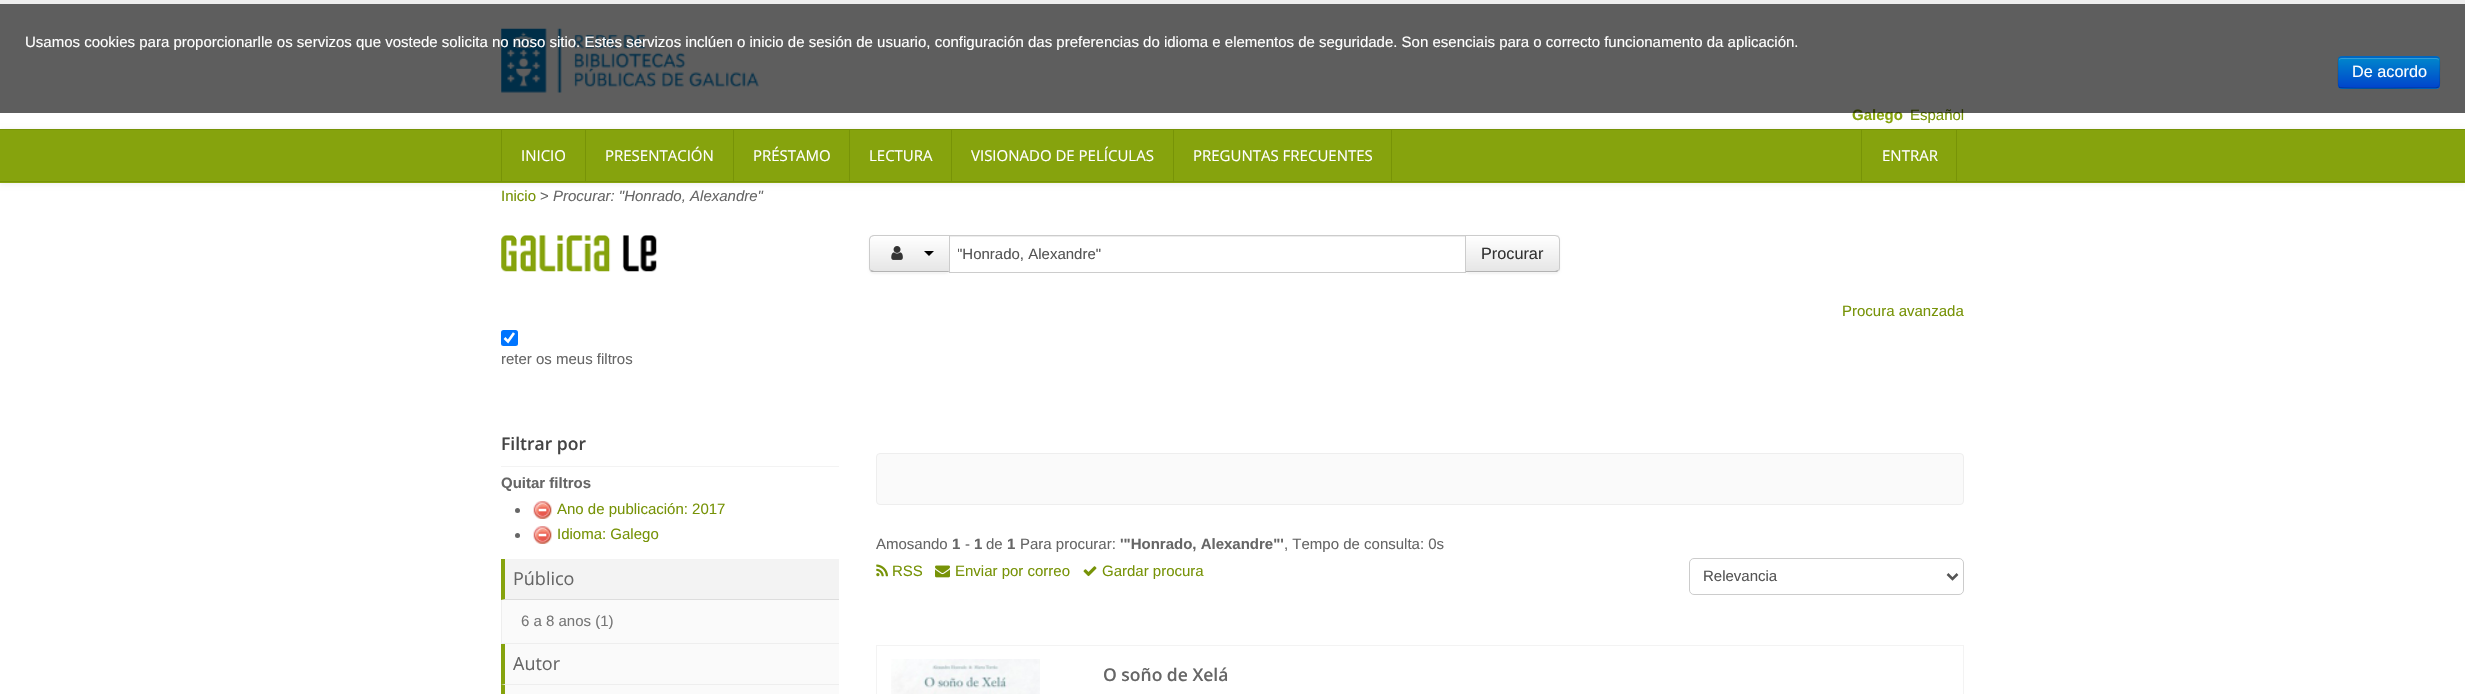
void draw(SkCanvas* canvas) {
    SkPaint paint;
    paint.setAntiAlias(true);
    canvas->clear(0xFFFFFFFF);
    paint.setColor(0xFFEEEEEE);
    canvas->drawRect(SkRect::MakeXYWH(0, 0, 2465, 4), paint);
    canvas->drawImageRect(SkImages::DeferredFromEncodedData(SkData::MakeFromFileName("img1.png")), SkRect::MakeXYWH(501, 28, 258, 65), SkSamplingOptions());
    paint.setColor(0x12000000);
    paint.setMaskFilter(SkMaskFilter::MakeBlur(kNormal_SkBlurStyle, 2.5f));
    canvas->drawRect(SkRect::MakeXYWH(0, 130, 2465, 54), paint);
    paint.setMaskFilter(nullptr);
    SkFont font1(fontMgr->matchFamilyStyle("Liberation Sans", SkFontStyle::Bold()), 15);
    font1.setSubpixel(true);
    paint.setColor(0xFF86A30D);
    canvas->drawString("Galego", 1852, 120, font1, paint);
    SkFont font2(fontMgr->matchFamilyStyle("Liberation Sans", SkFontStyle::Normal()), 15);
    font2.setSubpixel(true);
    paint.setColor(0xFF779307);
    canvas->drawString("Español", 1910, 120, font2, paint);
    paint.setColor(0xA1000000);
    canvas->drawRect(SkRect::MakeXYWH(0, 4, 2465, 109), paint);
    paint.setColor(0xFFFFFFFF);
    canvas->drawString("Usamos cookies para proporcionarlle os servizos que vostede solicita no noso sitio. Estes servizos inclúen o inicio de sesión de usuario, configuración das preferencias do idioma e elementos de seguridade. Son esenciais para o correcto funcionamento da aplicación.", 25, 47, font2, paint);
    paint.setColor(0xFF006DCC);
    canvas->drawRoundRect(SkRect::MakeXYWH(2338, 56, 102, 33), 4, 4, paint);
    canvas->save();
    canvas->clipPath(SkPathBuilder().moveTo(2342, 56).lineTo(2436, 56).cubicTo(2438, 56, 2440, 58, 2440, 60).lineTo(2440, 85).cubicTo(2440, 87, 2438, 89, 2436, 89).lineTo(2342, 89).cubicTo(2340, 89, 2338, 87, 2338, 85).lineTo(2338, 60).cubicTo(2338, 58, 2340, 56, 2342, 56).close().detach(), true);
    {
        const SkColor colors[] = {0xFF0088CC, 0xFF0044CC};
        const float stops[] = {0, 1};
        const SkPoint ends[] = {{2389, 57}, {2389, 88}};
        paint.setShader(SkGradientShader::MakeLinear(ends, colors, stops, 2, SkTileMode::kClamp));
        paint.setAlpha(255);
    }
    canvas->drawRect(SkRect::MakeXYWH(2338, 58, 102, 30), paint);
    canvas->restore();
    paint.setShader(nullptr);
    paint.setColor(0xFF339DD6);
    canvas->drawPath(SkPathBuilder().moveTo(2341, 59).lineTo(2436, 59).cubicTo(2438, 59, 2439, 60, 2439, 61).lineTo(2439, 60).cubicTo(2439, 59, 2438, 58, 2436, 58).lineTo(2342, 58).cubicTo(2340, 58, 2339, 59, 2339, 60).lineTo(2339, 61).cubicTo(2339, 60, 2340, 59, 2341, 59).close().detach(), paint);
    paint.setStyle(SkPaint::kStroke_Style);
    paint.setStrokeWidth(1.2f);
    paint.setColor(0x40000000);
    canvas->drawPath(SkPathBuilder().moveTo(2438.5f, 87).lineTo(2436, 88).lineTo(2420.5f, 88).cubicTo(2412, 88, 2341.5f, 89, 2339.5f, 87.5f).lineTo(2339, 87).detach(), paint);
    paint.setColor(0x1A000000);
    canvas->drawPath(SkPathBuilder().moveTo(2339, 87).cubicTo(2337, 85, 2338, 75.5f, 2338, 72.5f).cubicTo(2338, 53, 2335.5f, 57, 2357, 57).lineTo(2420.5f, 57).cubicTo(2444, 57, 2439.5f, 53.5f, 2439.5f, 76.5f).cubicTo(2439.5f, 79, 2440.5f, 85, 2438.5f, 87).detach(), paint);
    SkFont font3(fontMgr->matchFamilyStyle("Liberation Sans", SkFontStyle::Normal()), 16.25f);
    font3.setSubpixel(true);
    paint.setStyle(SkPaint::kFill_Style);
    paint.setColor(0xFFFFFFFF);
    canvas->drawString("De acordo", 2352, 77, font3, paint);
    paint.setColor(0xFF86A30D);
    canvas->drawRect(SkRect::MakeXYWH(0, 130, 2465, 53), paint);
    paint.setColor(0xFF779307);
    canvas->drawRect(SkRect::MakeXYWH(0, 129, 2465, 1), paint);
    canvas->drawRect(SkRect::MakeXYWH(0, 181, 2465, 1), paint);
    canvas->drawRect(SkRect::MakeXYWH(501, 130, 1, 51), paint);
    canvas->drawRect(SkRect::MakeXYWH(585, 130, 1, 51), paint);
    SkFont font4(fontMgr->matchFamilyStyle("Open Sans", SkFontStyle::Normal()), 15);
    font4.setSubpixel(true);
    paint.setColor(0xFFFFFFFF);
    canvas->drawString("INICIO", 521, 161, font4, paint);
    paint.setColor(0xFF779307);
    canvas->drawRect(SkRect::MakeXYWH(733, 130, 1, 51), paint);
    paint.setColor(0xFFFFFFFF);
    canvas->drawString("PRESENTACIÓN", 605, 161, font4, paint);
    paint.setColor(0xFF779307);
    canvas->drawRect(SkRect::MakeXYWH(849, 130, 1, 51), paint);
    paint.setColor(0xFFFFFFFF);
    canvas->drawString("PRÉSTAMO", 753, 161, font4, paint);
    paint.setColor(0xFF779307);
    canvas->drawRect(SkRect::MakeXYWH(951, 130, 1, 51), paint);
    paint.setColor(0xFFFFFFFF);
    canvas->drawString("LECTURA", 869, 161, font4, paint);
    paint.setColor(0xFF779307);
    canvas->drawRect(SkRect::MakeXYWH(1173, 130, 1, 51), paint);
    paint.setColor(0xFFFFFFFF);
    canvas->drawString("VISIONADO DE PELÍCULAS", 971, 161, font4, paint);
    paint.setColor(0xFF779307);
    canvas->drawRect(SkRect::MakeXYWH(1391, 130, 1, 51), paint);
    paint.setColor(0xFFFFFFFF);
    canvas->drawString("PREGUNTAS FRECUENTES", 1193, 161, font4, paint);
    paint.setColor(0xFF779307);
    canvas->drawRect(SkRect::MakeXYWH(1861, 130, 1, 51), paint);
    canvas->drawRect(SkRect::MakeXYWH(1956, 130, 1, 51), paint);
    paint.setColor(0xFFFFFFFF);
    canvas->drawString("ENTRAR", 1882, 161, font4, paint);
    paint.setColor(0xFF779307);
    canvas->drawString("Inicio", 501, 201, font2, paint);
    paint.setColor(0xFF666666);
    canvas->drawString(">", 540, 201, font2, paint);
    SkFont font5(fontMgr->matchFamilyStyle("Liberation Sans", SkFontStyle::Italic()), 15);
    font5.setSubpixel(true);
    canvas->drawString("Procurar: \"Honrado, Alexandre\"", 553, 201, font5, paint);
    canvas->drawImageRect(SkImages::DeferredFromEncodedData(SkData::MakeFromFileName("img2.png")), SkRect::MakeXYWH(501, 235, 156, 37), SkSamplingOptions());
    paint.setColor(0x0D000000);
    paint.setMaskFilter(SkMaskFilter::MakeBlur(kNormal_SkBlurStyle, 1));
    canvas->drawRoundRect(SkRect::MakeXYWH(869, 236, 81, 38), 5, 5, paint);
    paint.setMaskFilter(nullptr);
    paint.setColor(0xFFF5F5F5);
    canvas->drawPath(SkPathBuilder().moveTo(874, 235).lineTo(950, 235).lineTo(950, 273).lineTo(874, 273).cubicTo(871, 273, 869, 271, 869, 268).lineTo(869, 240).cubicTo(869, 237, 871, 235, 874, 235).close().detach(), paint);
    canvas->save();
    canvas->clipPath(SkPathBuilder().moveTo(874, 235).lineTo(950, 235).lineTo(950, 273).lineTo(874, 273).cubicTo(871, 273, 869, 271, 869, 268).lineTo(869, 240).cubicTo(869, 237, 871, 235, 874, 235).close().detach(), true);
    {
        const SkColor colors[] = {0xFFFFFFFF, 0xFFE6E6E6};
        const float stops[] = {0, 1};
        const SkPoint ends[] = {{909, 236}, {909, 271}};
        paint.setShader(SkGradientShader::MakeLinear(ends, colors, stops, 2, SkTileMode::kClamp));
        paint.setAlpha(255);
    }
    canvas->drawRect(SkRect::MakeXYWH(869, 236, 80, 35), paint);
    canvas->restore();
    paint.setShader(nullptr);
    paint.setColor(0xFFCCCCCC);
    canvas->drawPath(SkPathBuilder().moveTo(874, 235).cubicTo(872, 235, 871, 236, 870, 237).lineTo(871, 237).lineTo(874, 236).lineTo(949, 236).lineTo(950, 235).close().detach(), paint);
    paint.setColor(0xFFB3B3B3);
    canvas->drawPath(SkPathBuilder().moveTo(950, 272).lineTo(874, 272).cubicTo(873, 272, 871, 272, 870, 271).lineTo(871, 270).lineTo(874, 271).lineTo(948, 271).close().detach(), paint);
    paint.setColor(0xFFCCCCCC);
    canvas->drawPath(SkPathBuilder().moveTo(870.5f, 236.5f).cubicTo(869.5f, 237.5f, 869, 238.5f, 869, 240).lineTo(869, 268).cubicTo(869, 269, 869.5f, 270, 870.5f, 271).lineTo(871, 270).cubicTo(870.5f, 269.5f, 870, 269, 870, 268).lineTo(870, 240).cubicTo(870, 239, 870.5f, 238, 871, 237.5f).close().detach(), paint);
    canvas->drawImageRect(SkImages::DeferredFromEncodedData(SkData::MakeFromFileName("img3.png")), SkRect::MakeXYWH(891, 246, 12, 14), SkSamplingOptions());
    paint.setColor(0xFF000000);
    canvas->drawPath(SkPathBuilder().moveTo(924, 251).lineTo(934, 251).lineTo(929, 256).close().detach(), paint);
    paint.setColor(0x0D000000);
    paint.setMaskFilter(SkMaskFilter::MakeBlur(kNormal_SkBlurStyle, 1));
    canvas->drawRoundRect(SkRect::MakeXYWH(1465, 236, 95, 38), 5, 5, paint);
    paint.setMaskFilter(nullptr);
    paint.setColor(0xFFFFFFFF);
    canvas->drawRect(SkRect::MakeXYWH(950, 239, 515, 32), paint);
    paint.setColor(0xFFECECEC);
    canvas->drawRect(SkRect::MakeXYWH(950, 236, 515, 1), paint);
    paint.setColor(0xFFF5F5F5);
    canvas->drawPath(SkPathBuilder().moveTo(1465, 235).lineTo(1555, 235).cubicTo(1558, 235, 1560, 237, 1560, 240).lineTo(1560, 268).cubicTo(1560, 271, 1558, 273, 1555, 273).lineTo(1465, 273).close().detach(), paint);
    canvas->save();
    canvas->clipPath(SkPathBuilder().moveTo(1465, 235).lineTo(1555, 235).cubicTo(1558, 235, 1560, 237, 1560, 240).lineTo(1560, 268).cubicTo(1560, 271, 1558, 273, 1555, 273).lineTo(1465, 273).close().detach(), true);
    {
        const SkColor colors[] = {0xFFFFFFFF, 0xFFE6E6E6};
        const float stops[] = {0, 1};
        const SkPoint ends[] = {{1513, 236}, {1513, 271}};
        paint.setShader(SkGradientShader::MakeLinear(ends, colors, stops, 2, SkTileMode::kClamp));
        paint.setAlpha(255);
    }
    canvas->drawRect(SkRect::MakeXYWH(1466, 236, 94, 35), paint);
    canvas->restore();
    paint.setShader(nullptr);
    paint.setColor(0xFFCCCCCC);
    canvas->drawPath(SkPathBuilder().moveTo(1465, 235).lineTo(1466, 236).lineTo(1555, 236).lineTo(1558, 237).lineTo(1559, 236).cubicTo(1558, 236, 1556, 235, 1555, 235).close().detach(), paint);
    paint.setStyle(SkPaint::kStroke_Style);
    paint.setStrokeWidth(1);
    canvas->drawRect(SkRect::MakeXYWH(949.5f, 235.5f, 516, 37), paint);
    canvas->save();
    canvas->clipRect(SkRect::MakeXYWH(958, 241, 500, 25));
    paint.setStyle(SkPaint::kFill_Style);
    paint.setColor(0xFF555555);
    canvas->drawString("\"Honrado, Alexandre\"", 957, 259, font2, paint);
    canvas->restore();
    paint.setColor(0xFFCCCCCC);
    canvas->drawPath(SkPathBuilder().moveTo(1560, 268).lineTo(1560, 240).cubicTo(1560, 238.5f, 1559.5f, 237, 1558.5f, 236.5f).lineTo(1558, 237).cubicTo(1558.5f, 238, 1559, 239, 1559, 240).lineTo(1559, 268).cubicTo(1559, 269, 1558.5f, 270, 1558, 270).lineTo(1558.5f, 271).cubicTo(1559.5f, 270, 1560, 269, 1560, 268).close().detach(), paint);
    paint.setColor(0xFFB3B3B3);
    canvas->drawPath(SkPathBuilder().moveTo(1558, 271).cubicTo(1558, 272, 1556, 272, 1555, 272).lineTo(1466, 272).lineTo(1466, 271).lineTo(1555, 271).lineTo(1558, 270).close().detach(), paint);
    paint.setColor(0xFF333333);
    canvas->drawString("Procurar", 1481, 259, font3, paint);
    paint.setColor(0xFF779307);
    canvas->drawString("Procura avanzada", 1842, 316, font2, paint);
    paint.setColor(0xFF0075FF);
    canvas->drawRoundRect(SkRect::MakeXYWH(501, 330, 17, 16), 2.5f, 2.5f, paint);
    paint.setStyle(SkPaint::kStroke_Style);
    paint.setStrokeWidth(2.6f);
    paint.setColor(0xFFFFFFFF);
    canvas->drawPath(SkPathBuilder().moveTo(504.5f, 338).lineTo(508, 341.5f).lineTo(514, 333).detach(), paint);
    paint.setStyle(SkPaint::kFill_Style);
    paint.setColor(0xFF666666);
    canvas->drawString("reter os meus filtros", 501, 364, font2, paint);
    paint.setColor(0xFFF3F3F3);
    canvas->drawRect(SkRect::MakeXYWH(501, 466, 338, 1), paint);
    SkFont font6(fontMgr->matchFamilyStyle("Open Sans", SkFontStyle(600, SkFontStyle::kNormal_Width, SkFontStyle::kUpright_Slant)), 17.5f);
    font6.setSubpixel(true);
    paint.setColor(0xFF444444);
    canvas->drawString("Filtrar por", 501, 450, font6, paint);
    paint.setColor(0xFF666666);
    canvas->drawString("Quitar filtros", 501, 488, font1, paint);
    canvas->drawCircle(517.5f, 510.5f, 2.5f, paint);
    canvas->drawImageRect(SkImages::DeferredFromEncodedData(SkData::MakeFromFileName("img4.png")), SkRect::MakeXYWH(533, 501, 19, 18), SkSamplingOptions());
    paint.setColor(0xFF779307);
    canvas->drawString("Ano de publicación: 2017", 557, 514, font2, paint);
    paint.setColor(0xFF666666);
    canvas->drawCircle(517.5f, 535.5f, 2.5f, paint);
    canvas->drawImageRect(SkImages::DeferredFromEncodedData(SkData::MakeFromFileName("img4.png")), SkRect::MakeXYWH(533, 526, 19, 18), SkSamplingOptions());
    paint.setColor(0xFF779307);
    canvas->drawString("Idioma: Galego", 557, 539, font2, paint);
    paint.setColor(0xFFF3F3F3);
    canvas->drawRect(SkRect::MakeXYWH(501, 559, 338, 41), paint);
    paint.setColor(0xFFDDDDDD);
    canvas->drawPath(SkPathBuilder().moveTo(839, 600).lineTo(501, 600).lineTo(505, 599).lineTo(839, 599).close().detach(), paint);
    paint.setColor(0xFF86A30D);
    canvas->drawPath(SkPathBuilder().moveTo(501, 600).lineTo(501, 559).lineTo(505, 559).lineTo(505, 599).close().detach(), paint);
    SkFont font7(fontMgr->matchFamilyStyle("Open Sans", SkFontStyle::Normal()), 18);
    font7.setSubpixel(true);
    paint.setColor(0xFF666666);
    canvas->drawString("Público", 513, 585, font7, paint);
    paint.setColor(0xFFFAFAFA);
    canvas->drawRect(SkRect::MakeXYWH(502, 600, 337, 43), paint);
    paint.setColor(0xFFEEEEEE);
    canvas->drawRect(SkRect::MakeXYWH(501, 643, 338, 1), paint);
    canvas->drawRect(SkRect::MakeXYWH(501, 600, 1, 44), paint);
    paint.setColor(0xFF777777);
    canvas->drawString("6 a 8 anos (1)", 521, 626, font2, paint);
    paint.setColor(0xFFFAFAFA);
    canvas->drawRect(SkRect::MakeXYWH(501, 644, 338, 41), paint);
    paint.setColor(0xFFEEEEEE);
    canvas->drawPath(SkPathBuilder().moveTo(839, 685).lineTo(501, 685).lineTo(505, 684).lineTo(839, 684).close().detach(), paint);
    paint.setColor(0xFF86A30D);
    canvas->drawPath(SkPathBuilder().moveTo(501, 685).lineTo(501, 644).lineTo(505, 644).lineTo(505, 684).close().detach(), paint);
    paint.setColor(0xFF666666);
    canvas->drawString("Autor", 513, 670, font7, paint);
    paint.setColor(0xFFFAFAFA);
    canvas->drawRect(SkRect::MakeXYWH(505, 685, 334, 9), paint);
    paint.setColor(0xFF86A30D);
    canvas->drawPath(SkPathBuilder().moveTo(501, 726).lineTo(501, 685).lineTo(505, 685).lineTo(505, 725).close().detach(), paint);
    paint.setColor(0xFFFAFAFA);
    canvas->drawRoundRect(SkRect::MakeXYWH(876.5f, 453.5f, 1087, 51), 3.5f, 3.5f, paint);
    paint.setStyle(SkPaint::kStroke_Style);
    paint.setStrokeWidth(1);
    paint.setColor(0xFFEEEEEE);
    canvas->drawRoundRect(SkRect::MakeXYWH(876.5f, 453.5f, 1087, 51), 3.5f, 3.5f, paint);
    paint.setStyle(SkPaint::kFill_Style);
    paint.setColor(0xFF666666);
    canvas->drawString("Amosando", 876, 549, font2, paint);
    canvas->drawString("1", 952, 549, font1, paint);
    canvas->drawString("-", 965, 549, font2, paint);
    canvas->drawString("1", 974, 549, font1, paint);
    canvas->drawString("de", 986, 549, font2, paint);
    canvas->drawString("1", 1007, 549, font1, paint);
    canvas->drawString("Para procurar:", 1020, 549, font2, paint);
    canvas->drawString("'\"Honrado, Alexandre\"'", 1120, 549, font1, paint);
    canvas->drawString(", Tempo de consulta: 0s", 1284, 549, font2, paint);
    canvas->drawImageRect(SkImages::DeferredFromEncodedData(SkData::MakeFromFileName("img5.png")), SkRect::MakeXYWH(876, 564, 12, 13), SkSamplingOptions());
    paint.setColor(0xFF779307);
    canvas->drawString("RSS", 892, 576, font2, paint);
    canvas->drawImageRect(SkImages::DeferredFromEncodedData(SkData::MakeFromFileName("img6.png")), SkRect::MakeXYWH(935, 565, 15, 13), SkSamplingOptions());
    canvas->drawString("Enviar por correo", 955, 576, font2, paint);
    canvas->drawImageRect(SkImages::DeferredFromEncodedData(SkData::MakeFromFileName("img7.png")), SkRect::MakeXYWH(1083, 566, 14, 11), SkSamplingOptions());
    canvas->drawString("Gardar procura", 1102, 576, font2, paint);
    paint.setStyle(SkPaint::kStroke_Style);
    paint.setColor(0xFFCCCCCC);
    canvas->drawRoundRect(SkRect::MakeXYWH(1689.5f, 558.5f, 274, 36), 4.5f, 4.5f, paint);
    paint.setStrokeWidth(2.5f);
    paint.setColor(0xFF555555);
    canvas->drawPath(SkPathBuilder().moveTo(1947.5f, 574).lineTo(1952.5f, 579).lineTo(1957.5f, 574).detach(), paint);
    paint.setStyle(SkPaint::kFill_Style);
    canvas->drawString("Relevancia", 1703, 581, font2, paint);
    paint.setStyle(SkPaint::kStroke_Style);
    paint.setStrokeWidth(1);
    paint.setColor(0xFFF3F3F3);
    canvas->drawRect(SkRect::MakeXYWH(876.5f, 645.5f, 1087, 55), paint);
    canvas->drawImageRect(SkImages::DeferredFromEncodedData(SkData::MakeFromFileName("img8.png")), SkRect::MakeXYWH(891, 659, 149, 35), SkSamplingOptions());
    paint.setStyle(SkPaint::kFill_Style);
    paint.setColor(0xFF666666);
    canvas->drawString("O soño de Xelá", 1103, 681, font6, paint);
    paint.setColor(0xFFFFFFFF);
    canvas->drawRect(SkRect::MakeXYWH(501, 694, 1463, 6), paint);
}
